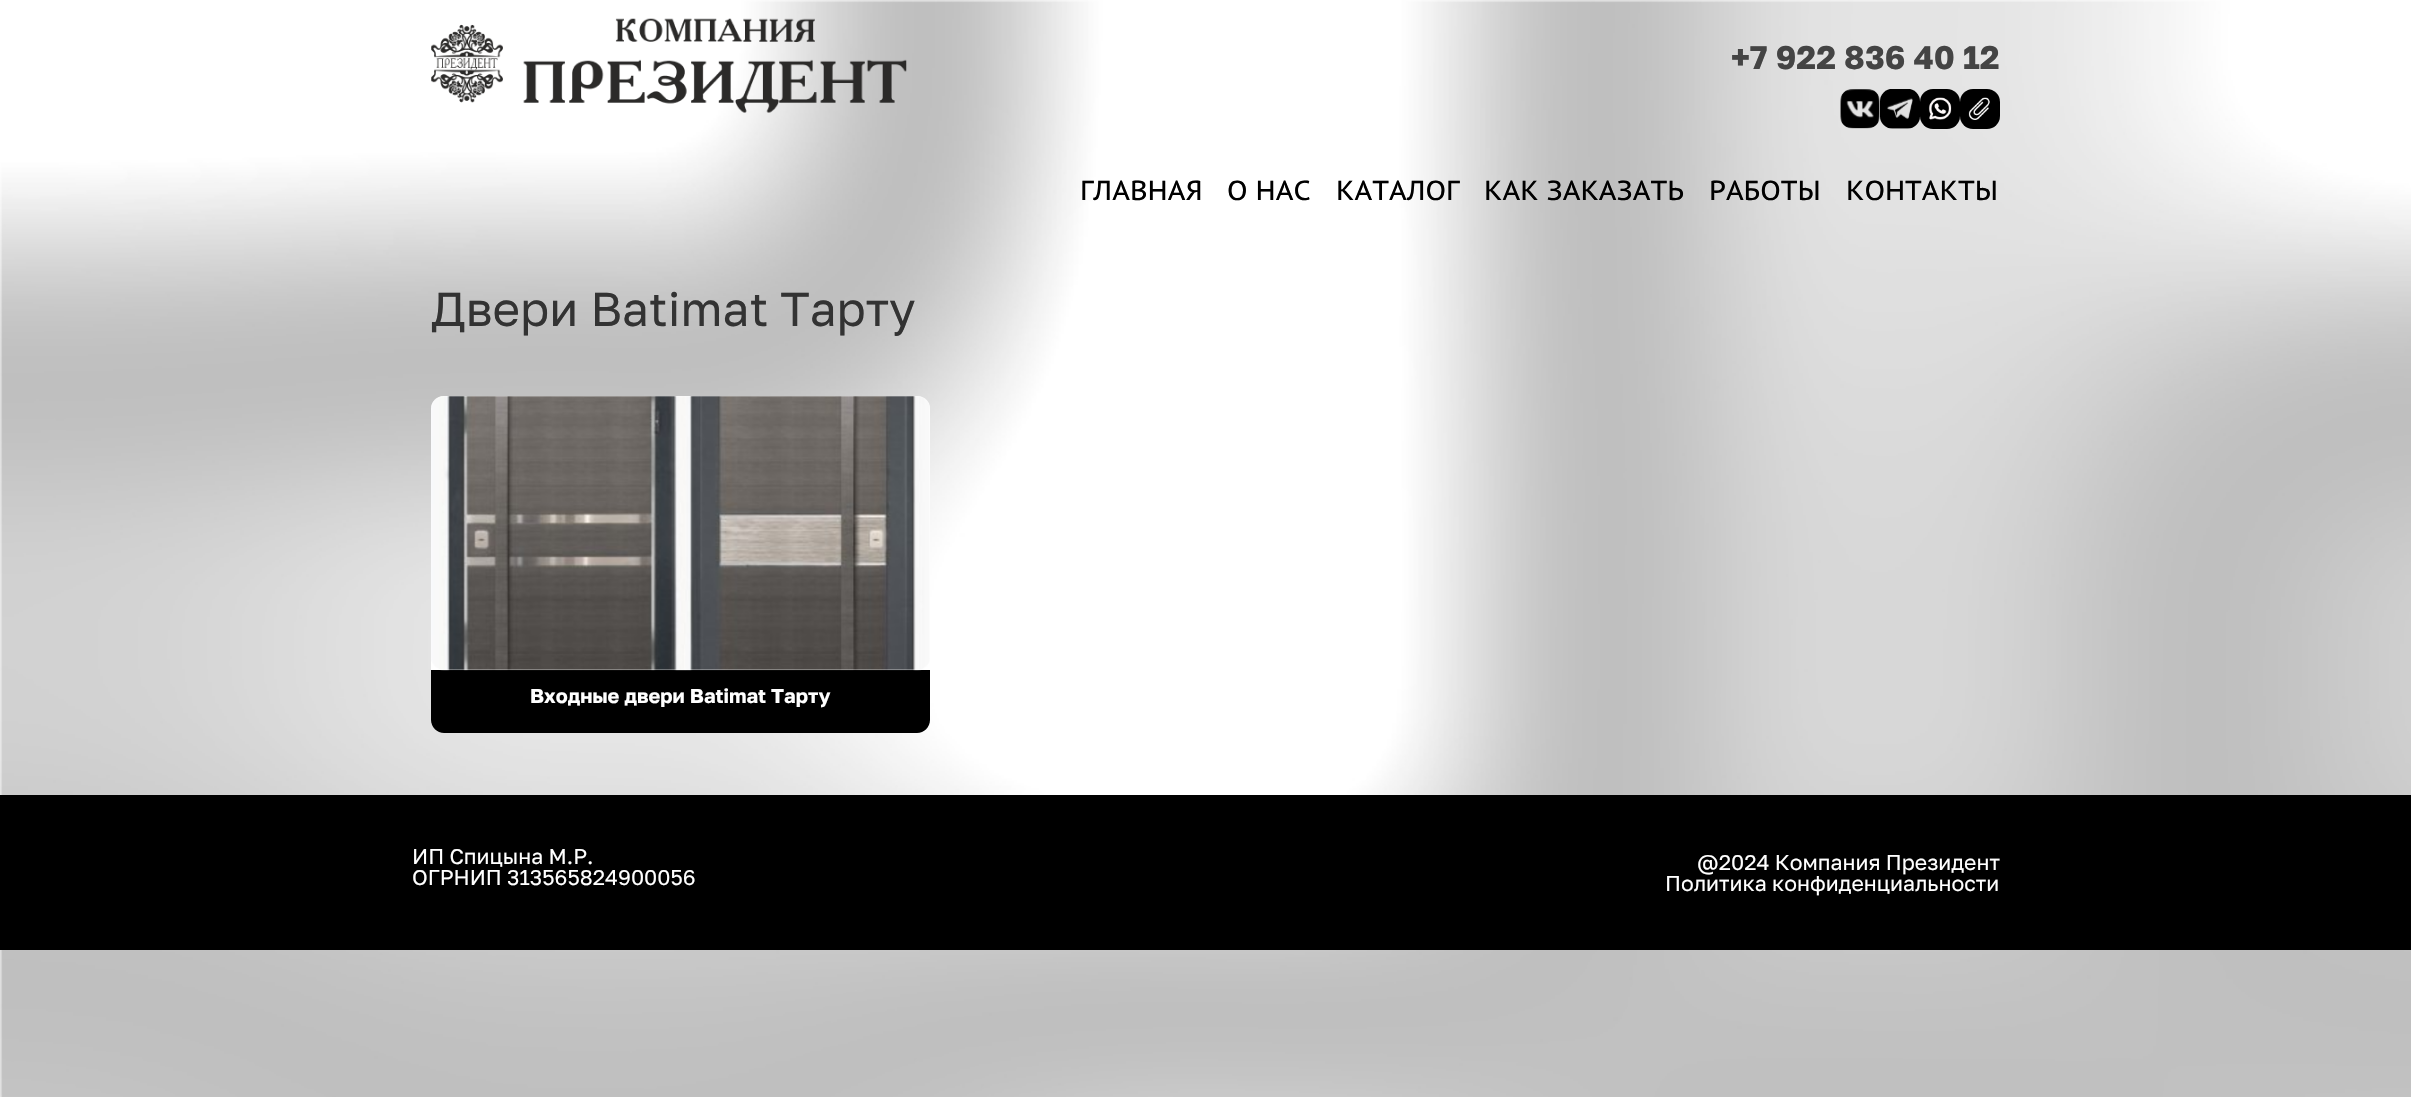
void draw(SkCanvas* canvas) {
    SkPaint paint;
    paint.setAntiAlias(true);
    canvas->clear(0xFFFFFFFF);
    canvas->drawImageRect(SkImages::DeferredFromEncodedData(SkData::MakeFromFileName("img1.png")), SkRect::MakeXYWH(0, 0, 2411, 1097), SkSamplingOptions());
    canvas->drawImageRect(SkImages::DeferredFromEncodedData(SkData::MakeFromFileName("img2.png")), SkRect::MakeXYWH(431, 18, 476, 95), SkSamplingOptions());
    SkFont font1(fontMgr->matchFamilyStyle("Golos Text", SkFontStyle::Bold()), 32.5f);
    font1.setSubpixel(true);
    paint.setColor(0xFF444444);
    canvas->drawString("+7 922 836 40 12", 1731, 69, font1, paint);
    canvas->drawImageRect(SkImages::DeferredFromEncodedData(SkData::MakeFromFileName("img3.png")), SkRect::MakeXYWH(1840, 89, 40, 40), SkSamplingOptions());
    canvas->drawImageRect(SkImages::DeferredFromEncodedData(SkData::MakeFromFileName("img4.png")), SkRect::MakeXYWH(1880, 89, 40, 40), SkSamplingOptions());
    paint.setColor(0xFF000000);
    canvas->drawRoundRect(SkRect::MakeXYWH(1920, 89, 40, 40), 13, 13, paint);
    canvas->drawImageRect(SkImages::DeferredFromEncodedData(SkData::MakeFromFileName("img5.png")), SkRect::MakeXYWH(1928, 97, 24, 23), SkSamplingOptions());
    canvas->drawRoundRect(SkRect::MakeXYWH(1960, 89, 40, 40), 13, 13, paint);
    canvas->drawImageRect(SkImages::DeferredFromEncodedData(SkData::MakeFromFileName("img6.png")), SkRect::MakeXYWH(1968, 97, 22, 23), SkSamplingOptions());
    SkFont font2(fontMgr->matchFamilyStyle("PT Sans Caption", SkFontStyle::Normal()), 27.5f);
    font2.setSubpixel(true);
    canvas->drawString("ГЛАВНАЯ", 1080, 200, font2, paint);
    canvas->drawString("О НАС", 1227, 200, font2, paint);
    canvas->drawString("КАТАЛОГ", 1336, 200, font2, paint);
    canvas->drawString("КАК ЗАКАЗАТЬ", 1484, 200, font2, paint);
    canvas->drawString("РАБОТЫ", 1709, 200, font2, paint);
    canvas->drawString("КОНТАКТЫ", 1846, 200, font2, paint);
    SkFont font3(fontMgr->matchFamilyStyle("Golos Text", SkFontStyle::Normal()), 47.5f);
    font3.setSubpixel(true);
    paint.setColor(0xFF333333);
    canvas->drawString("Двери Batimat Тарту", 431, 326, font3, paint);
    paint.setColor(0xFFFFFFFF);
    canvas->drawRoundRect(SkRect::MakeXYWH(431, 396, 499, 337), 13, 13, paint);
    paint.setColor(0xFF000000);
    canvas->drawPath(SkPathBuilder().moveTo(431, 670).lineTo(930, 670).lineTo(930, 720).cubicTo(930, 727, 924, 733, 917, 733).lineTo(444, 733).cubicTo(437, 733, 431, 727, 431, 720).close().detach(), paint);
    canvas->drawImageRect(SkImages::DeferredFromEncodedData(SkData::MakeFromFileName("img7.png")), SkRect::MakeXYWH(431, 396, 499, 275), SkSamplingOptions());
    SkFont font4(fontMgr->matchFamilyStyle("Golos Text", SkFontStyle::Bold()), 20);
    font4.setSubpixel(true);
    paint.setColor(0xFFFFFFFF);
    canvas->drawString("Входные двери Batimat Тарту", 530, 703, font4, paint);
    paint.setColor(0xFF000000);
    canvas->drawRect(SkRect::MakeXYWH(0, 795, 2411, 155), paint);
    SkFont font5(fontMgr->matchFamilyStyle("Golos Text", SkFontStyle::Normal()), 21.25f);
    font5.setSubpixel(true);
    paint.setColor(0xFFFFFFFF);
    canvas->drawString("ИП Спицына М.Р.", 412, 864, font5, paint);
    canvas->drawString("ОГРНИП 313565824900056", 412, 885, font5, paint);
    canvas->drawString("@2024 Компания Президент", 1697, 870, font5, paint);
    canvas->drawString("Политика конфиденциальности", 1665, 891, font5, paint);
}
